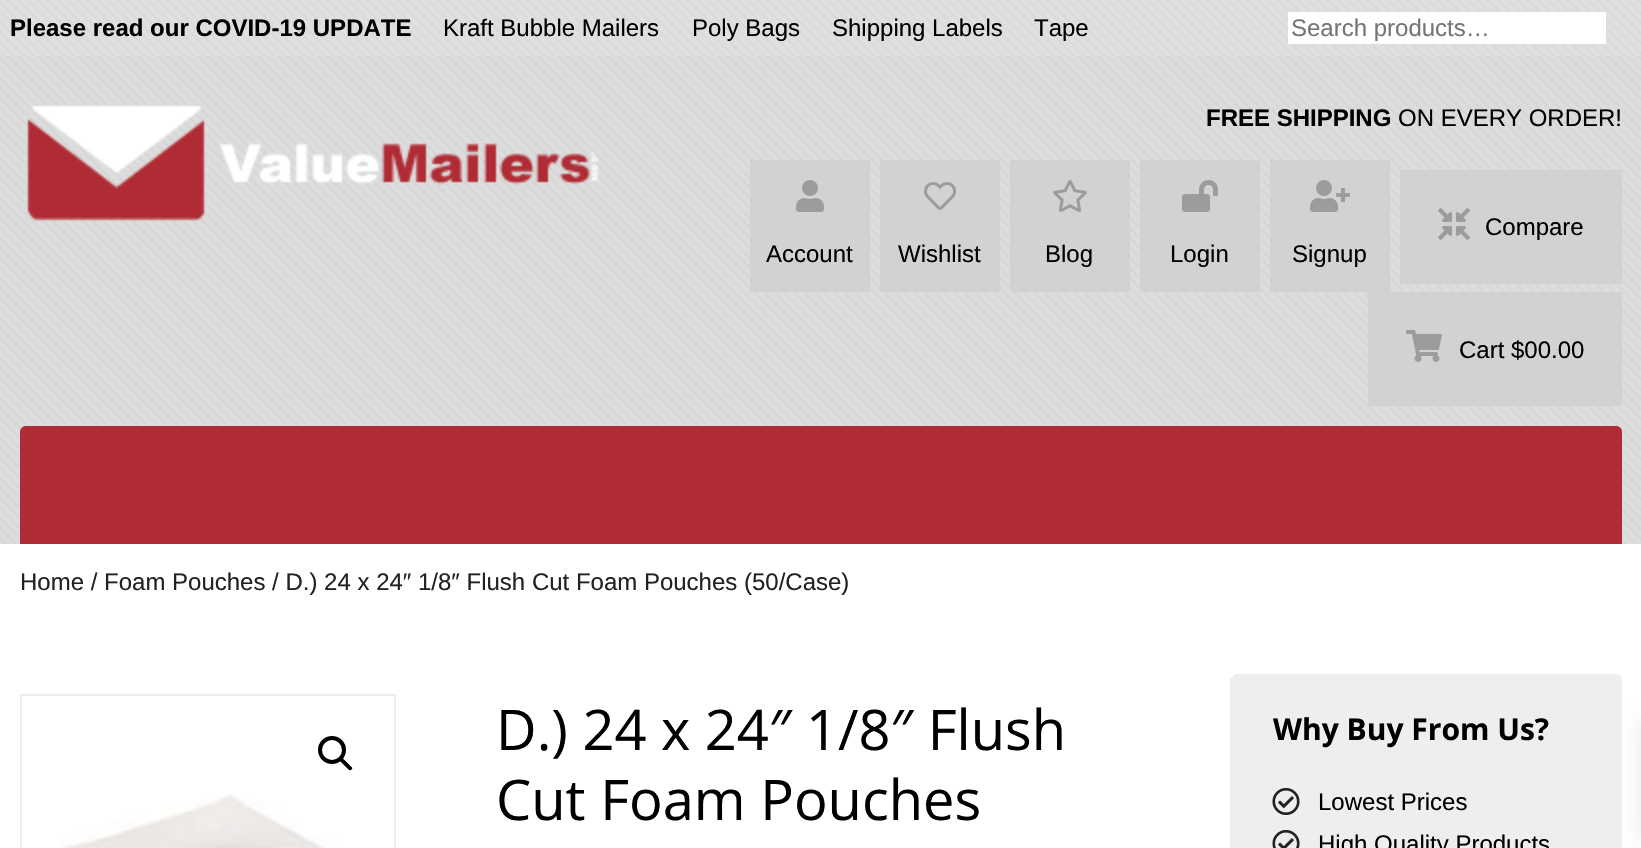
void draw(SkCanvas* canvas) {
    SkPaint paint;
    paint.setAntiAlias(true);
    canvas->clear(0xFFFFFFFF);
    paint.setColor(0xFFE0E0E0);
    canvas->drawRect(SkRect::MakeXYWH(0, 0, 1641, 56), paint);
    canvas->drawImageRect(SkImages::DeferredFromEncodedData(SkData::MakeFromFileName("img1.png")), SkRect::MakeXYWH(0, 0, 1641, 56), SkSamplingOptions());
    SkFont font1(fontMgr->matchFamilyStyle("Liberation Sans", SkFontStyle::Bold()), 24);
    font1.setSubpixel(true);
    paint.setColor(0xFF000000);
    canvas->drawString("Please read our COVID-19 UPDATE", 10, 36, font1, paint);
    SkFont font2(fontMgr->matchFamilyStyle("Liberation Sans", SkFontStyle::Normal()), 24);
    font2.setSubpixel(true);
    canvas->drawString("Kraft Bubble Mailers", 443, 36, font2, paint);
    canvas->drawString("Poly Bags", 692, 36, font2, paint);
    canvas->drawString("Shipping Labels", 832, 36, font2, paint);
    canvas->drawString("Tape", 1034, 36, font2, paint);
    paint.setColor(0xFFFFFFFF);
    canvas->drawRect(SkRect::MakeXYWH(1288, 12, 318, 32), paint);
    paint.setColor(0xFF757575);
    canvas->drawString("Search products…", 1291, 36, font2, paint);
    paint.setColor(0xFFDDDDDD);
    canvas->drawRect(SkRect::MakeXYWH(0, 56, 1641, 488), paint);
    canvas->drawImageRect(SkImages::DeferredFromEncodedData(SkData::MakeFromFileName("img2.png")), SkRect::MakeXYWH(0, 56, 1641, 370), SkSamplingOptions());
    canvas->drawImageRect(SkImages::DeferredFromEncodedData(SkData::MakeFromFileName("img3.png")), SkRect::MakeXYWH(27, 105, 572, 116), SkSamplingOptions());
    paint.setColor(0xFF000000);
    canvas->drawString("FREE SHIPPING", 1206, 126, font1, paint);
    canvas->drawString("ON EVERY ORDER!", 1398, 126, font2, paint);
    paint.setColor(0xFFD2D2D2);
    canvas->drawRect(SkRect::MakeXYWH(1400, 170, 222, 114), paint);
    canvas->drawImageRect(SkImages::DeferredFromEncodedData(SkData::MakeFromFileName("img4.png")), SkRect::MakeXYWH(1438, 208, 32, 32), SkSamplingOptions());
    paint.setColor(0xFF000000);
    canvas->drawString("Compare", 1485, 235, font2, paint);
    paint.setColor(0xFFD2D2D2);
    canvas->drawRect(SkRect::MakeXYWH(750, 160, 120, 132), paint);
    canvas->drawImageRect(SkImages::DeferredFromEncodedData(SkData::MakeFromFileName("img5.png")), SkRect::MakeXYWH(796, 180, 28, 32), SkSamplingOptions());
    paint.setColor(0xFF000000);
    canvas->drawString("Account", 766, 262, font2, paint);
    paint.setColor(0xFFD2D2D2);
    canvas->drawRect(SkRect::MakeXYWH(880, 160, 120, 132), paint);
    canvas->drawImageRect(SkImages::DeferredFromEncodedData(SkData::MakeFromFileName("img6.png")), SkRect::MakeXYWH(924, 182, 32, 28), SkSamplingOptions());
    paint.setColor(0xFF000000);
    canvas->drawString("Wishlist", 898, 262, font2, paint);
    paint.setColor(0xFFD2D2D2);
    canvas->drawRect(SkRect::MakeXYWH(1010, 160, 120, 132), paint);
    canvas->drawImageRect(SkImages::DeferredFromEncodedData(SkData::MakeFromFileName("img7.png")), SkRect::MakeXYWH(1053, 180, 34, 32), SkSamplingOptions());
    paint.setColor(0xFF000000);
    canvas->drawString("Blog", 1045, 262, font2, paint);
    paint.setColor(0xFFD2D2D2);
    canvas->drawRect(SkRect::MakeXYWH(1140, 160, 120, 132), paint);
    canvas->drawImageRect(SkImages::DeferredFromEncodedData(SkData::MakeFromFileName("img8.png")), SkRect::MakeXYWH(1182, 180, 36, 32), SkSamplingOptions());
    paint.setColor(0xFF000000);
    canvas->drawString("Login", 1170, 262, font2, paint);
    paint.setColor(0xFFD2D2D2);
    canvas->drawRect(SkRect::MakeXYWH(1270, 160, 120, 132), paint);
    canvas->drawImageRect(SkImages::DeferredFromEncodedData(SkData::MakeFromFileName("img9.png")), SkRect::MakeXYWH(1310, 180, 40, 32), SkSamplingOptions());
    paint.setColor(0xFF000000);
    canvas->drawString("Signup", 1292, 262, font2, paint);
    paint.setColor(0xFFD2D2D2);
    canvas->drawRect(SkRect::MakeXYWH(1368, 292, 254, 114), paint);
    canvas->drawImageRect(SkImages::DeferredFromEncodedData(SkData::MakeFromFileName("img10.png")), SkRect::MakeXYWH(1406, 330, 36, 32), SkSamplingOptions());
    paint.setColor(0xFF000000);
    canvas->drawString("Cart $00.00", 1459, 358, font2, paint);
    canvas->drawImageRect(SkImages::DeferredFromEncodedData(SkData::MakeFromFileName("img11.png")), SkRect::MakeXYWH(0, 426, 1641, 118), SkSamplingOptions());
    paint.setColor(0xFFB02C35);
    canvas->drawPath(SkPathBuilder().moveTo(26, 426).lineTo(1616, 426).cubicTo(1619.5f, 426, 1622, 428.5f, 1622, 432).lineTo(1622, 544).lineTo(20, 544).lineTo(20, 432).cubicTo(20, 428.5f, 22.5f, 426, 26, 426).close().detach(), paint);
    paint.setColor(0xFF222222);
    canvas->drawString("Home / Foam Pouches / D.) 24 x 24″ 1/8″ Flush Cut Foam Pouches (50/Case)", 20, 590, font2, paint);
    paint.setStyle(SkPaint::kStroke_Style);
    paint.setStrokeWidth(2);
    paint.setColor(0xFFEEEEEE);
    canvas->drawRect(SkRect::MakeXYWH(21, 695, 374, 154), paint);
    canvas->drawImageRect(SkImages::DeferredFromEncodedData(SkData::MakeFromFileName("img12.png")), SkRect::MakeXYWH(60, 794, 277, 54), SkSamplingOptions());
    paint.setStrokeWidth(4);
    paint.setColor(0xFF000000);
    canvas->drawCircle(332, 750, 12, paint);
    paint.setStyle(SkPaint::kFill_Style);
    canvas->drawPath(SkPathBuilder().moveTo(340, 758.5f).cubicTo(341, 757.5f, 342.5f, 757.5f, 343, 758.5f).lineTo(351.5f, 767).cubicTo(352.5f, 767.5f, 352.5f, 769, 351.5f, 769.5f).cubicTo(351, 770.5f, 349.5f, 770.5f, 348.5f, 769.5f).lineTo(340, 761).cubicTo(339.5f, 760.5f, 339.5f, 759, 340, 758.5f).close().detach(), paint);
    SkFont font3(fontMgr->matchFamilyStyle("Open Sans", SkFontStyle::Normal()), 56);
    font3.setSubpixel(true);
    canvas->drawString("D.) 24 x 24″ 1/8″ Flush", 496, 750, font3, paint);
    canvas->drawString("Cut Foam Pouches", 496, 820, font3, paint);
    paint.setColor(0xFFEEEEEE);
    canvas->drawPath(SkPathBuilder().moveTo(1236, 674).lineTo(1616, 674).cubicTo(1619, 674, 1622, 677, 1622, 680).lineTo(1622, 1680).cubicTo(1622, 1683, 1619, 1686, 1616, 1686).lineTo(1236, 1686).cubicTo(1234, 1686, 1232, 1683, 1232, 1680).lineTo(1232, 680).cubicTo(1232, 677, 1234, 674, 1236, 674).close().detach(), paint);
    canvas->drawRect(SkRect::MakeXYWH(1230, 678, 2, 170), paint);
    SkFont font4(fontMgr->matchFamilyStyle("Open Sans", SkFontStyle::Bold()), 30);
    font4.setSubpixel(true);
    paint.setColor(0xFF000000);
    canvas->drawString("Why Buy From Us?", 1273, 740, font4, paint);
    canvas->drawImageRect(SkImages::DeferredFromEncodedData(SkData::MakeFromFileName("img13.png")), SkRect::MakeXYWH(1272, 788, 28, 27), SkSamplingOptions());
    canvas->drawString("Lowest Prices", 1318, 810, font2, paint);
    canvas->drawImageRect(SkImages::DeferredFromEncodedData(SkData::MakeFromFileName("img14.png")), SkRect::MakeXYWH(1272, 830, 28, 18), SkSamplingOptions());
    canvas->drawString("High Quality Products", 1318, 852, font2, paint);
    paint.setColor(0x1A000000);
    paint.setMaskFilter(SkMaskFilter::MakeBlur(kNormal_SkBlurStyle, 10));
    canvas->drawRect(SkRect::MakeXYWH(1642, 722, 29, 116), paint);
    paint.setMaskFilter(nullptr);
}
